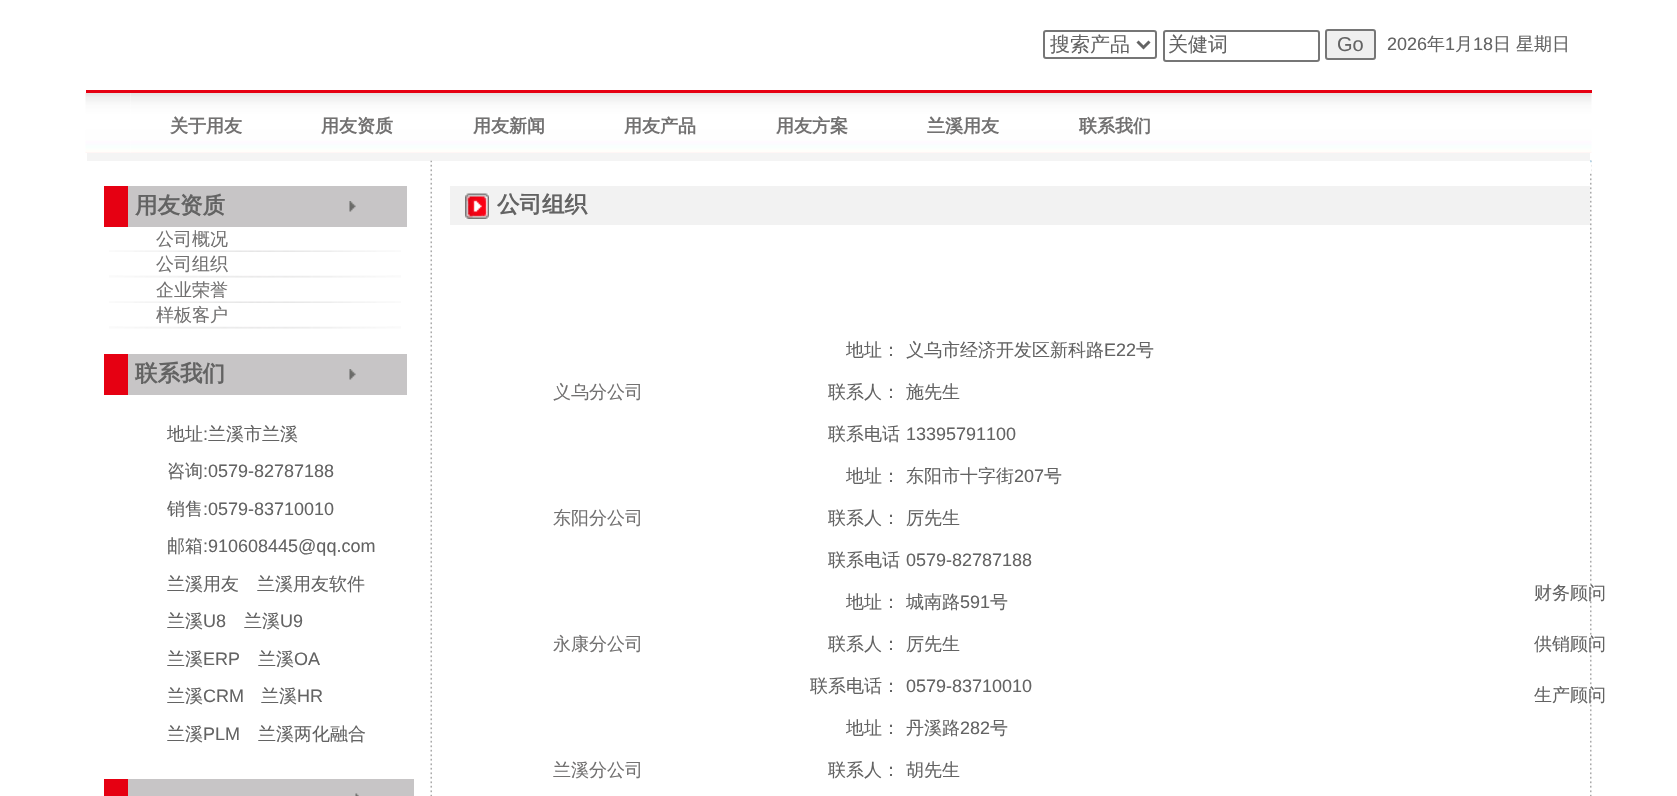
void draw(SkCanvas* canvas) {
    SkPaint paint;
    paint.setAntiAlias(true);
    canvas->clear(0xFFFFFFFF);
    paint.setStyle(SkPaint::kStroke_Style);
    paint.setStrokeWidth(2);
    paint.setColor(0xFF767676);
    canvas->drawRoundRect(SkRect::MakeXYWH(1044, 31, 112, 27), 2, 2, paint);
    paint.setStrokeWidth(3);
    paint.setColor(0xFF636363);
    canvas->drawPath(SkPathBuilder().moveTo(1137.5f, 41.5f).lineTo(1143.5f, 47.5f).lineTo(1149.5f, 41.5f).detach(), paint);
    SkFont font1(fontMgr->matchFamilyStyle("WenQuanYi Zen Hei", SkFontStyle(500, SkFontStyle::kNormal_Width, SkFontStyle::kUpright_Slant)), 20);
    font1.setSubpixel(true);
    paint.setStyle(SkPaint::kFill_Style);
    canvas->drawString("搜索产品", 1050, 51, font1, paint);
    paint.setStyle(SkPaint::kStroke_Style);
    paint.setStrokeWidth(2);
    paint.setColor(0xFF767676);
    canvas->drawRoundRect(SkRect::MakeXYWH(1164, 31, 155, 30), 2, 2, paint);
    paint.setStyle(SkPaint::kFill_Style);
    paint.setColor(0xFF636363);
    canvas->drawString("关健词", 1168, 51, font1, paint);
    paint.setColor(0xFFEFEFEF);
    canvas->drawRoundRect(SkRect::MakeXYWH(1326, 30, 49, 29), 2, 2, paint);
    paint.setStyle(SkPaint::kStroke_Style);
    paint.setColor(0xFF767676);
    canvas->drawRoundRect(SkRect::MakeXYWH(1326, 30, 49, 29), 2, 2, paint);
    SkFont font2(fontMgr->matchFamilyStyle("Liberation Sans", SkFontStyle::Normal()), 20);
    font2.setSubpixel(true);
    paint.setStyle(SkPaint::kFill_Style);
    paint.setColor(0xFF636363);
    canvas->drawString("Go", 1337, 51, font2, paint);
    SkFont font3(fontMgr->matchFamilyStyle("Liberation Sans", SkFontStyle::Normal()), 18);
    font3.setSubpixel(true);
    canvas->drawString("2026", 1387, 50, font3, paint);
    SkFont font4(fontMgr->matchFamilyStyle("WenQuanYi Zen Hei", SkFontStyle(500, SkFontStyle::kNormal_Width, SkFontStyle::kUpright_Slant)), 18);
    font4.setSubpixel(true);
    canvas->drawString("年", 1427, 50, font4, paint);
    canvas->drawString("1", 1445, 50, font3, paint);
    canvas->drawString("月", 1455, 50, font4, paint);
    canvas->drawString("18", 1473, 50, font3, paint);
    canvas->drawString("日", 1493, 50, font4, paint);
    canvas->drawString("星期日", 1516, 50, font4, paint);
    paint.setColor(0xFFE60012);
    canvas->drawRect(SkRect::MakeXYWH(86, 90, 1506, 3), paint);
    canvas->drawImageRect(SkImages::DeferredFromEncodedData(SkData::MakeFromFileName("img1.png")), SkRect::MakeXYWH(85, 93, 46, 60), SkSamplingOptions());
    canvas->drawImageRect(SkImages::DeferredFromEncodedData(SkData::MakeFromFileName("img2.png")), SkRect::MakeXYWH(130, 93, 1462, 60), SkSamplingOptions());
    SkFont font5(fontMgr->matchFamilyStyle("WenQuanYi Zen Hei", SkFontStyle::Bold()), 18);
    font5.setSubpixel(true);
    paint.setColor(0xFF727171);
    canvas->drawString("关于用友", 170, 132, font5, paint);
    canvas->drawString("用友资质", 321, 132, font5, paint);
    canvas->drawString("用友新闻", 473, 132, font5, paint);
    canvas->drawString("用友产品", 624, 132, font5, paint);
    canvas->drawString("用友方案", 776, 132, font5, paint);
    canvas->drawString("兰溪用友", 927, 132, font5, paint);
    canvas->drawString("联系我们", 1079, 132, font5, paint);
    paint.setColor(0xFFF4F4F4);
    canvas->drawRect(SkRect::MakeXYWH(87, 153, 1503, 8), paint);
    paint.setColor(0xFFC7C5C6);
    canvas->drawRect(SkRect::MakeXYWH(128, 186, 279, 41), paint);
    paint.setColor(0xFFE60012);
    canvas->drawRect(SkRect::MakeXYWH(104, 186, 24, 41), paint);
    SkFont font6(fontMgr->matchFamilyStyle("WenQuanYi Zen Hei", SkFontStyle::Bold()), 22.5f);
    font6.setSubpixel(true);
    paint.setColor(0xFF636363);
    canvas->drawString("用友资质", 135, 213, font6, paint);
    canvas->drawImageRect(SkImages::DeferredFromEncodedData(SkData::MakeFromFileName("img3.png")), SkRect::MakeXYWH(349, 201, 7, 11), SkSamplingOptions());
    canvas->drawImageRect(SkImages::DeferredFromEncodedData(SkData::MakeFromFileName("img4.png")), SkRect::MakeXYWH(109, 250, 292, 2), SkSamplingOptions());
    paint.setColor(0xFF727171);
    canvas->drawString("公司概况", 156, 245, font4, paint);
    canvas->drawImageRect(SkImages::DeferredFromEncodedData(SkData::MakeFromFileName("img5.png")), SkRect::MakeXYWH(109, 275, 292, 3), SkSamplingOptions());
    canvas->drawString("公司组织", 156, 270, font4, paint);
    canvas->drawImageRect(SkImages::DeferredFromEncodedData(SkData::MakeFromFileName("img4.png")), SkRect::MakeXYWH(109, 301, 292, 2), SkSamplingOptions());
    canvas->drawString("企业荣誉", 156, 296, font4, paint);
    canvas->drawImageRect(SkImages::DeferredFromEncodedData(SkData::MakeFromFileName("img5.png")), SkRect::MakeXYWH(109, 326, 292, 3), SkSamplingOptions());
    canvas->drawString("样板客户", 156, 321, font4, paint);
    paint.setColor(0xFFC7C5C6);
    canvas->drawRect(SkRect::MakeXYWH(128, 354, 279, 41), paint);
    paint.setColor(0xFFE60012);
    canvas->drawRect(SkRect::MakeXYWH(104, 354, 24, 41), paint);
    paint.setColor(0xFF636363);
    canvas->drawString("联系我们", 135, 381, font6, paint);
    canvas->drawImageRect(SkImages::DeferredFromEncodedData(SkData::MakeFromFileName("img3.png")), SkRect::MakeXYWH(349, 369, 7, 11), SkSamplingOptions());
    canvas->drawString("地址", 167, 440, font4, paint);
    canvas->drawString(":", 203, 440, font3, paint);
    canvas->drawString("兰溪市兰溪", 208, 440, font4, paint);
    canvas->drawString("咨询", 167, 477, font4, paint);
    canvas->drawString(":0579-82787188", 203, 477, font3, paint);
    canvas->drawString("销售", 167, 515, font4, paint);
    canvas->drawString(":0579-83710010", 203, 515, font3, paint);
    canvas->drawString("邮箱", 167, 552, font4, paint);
    canvas->drawString(":910608445@qq.com", 203, 552, font3, paint);
    canvas->drawString("兰溪用友　兰溪用友软件", 167, 590, font4, paint);
    canvas->drawString("兰溪", 167, 627, font4, paint);
    canvas->drawString("U8", 203, 627, font3, paint);
    canvas->drawString("兰溪", 244, 627, font4, paint);
    canvas->drawString("U9", 280, 627, font3, paint);
    canvas->drawString("兰溪", 167, 665, font4, paint);
    canvas->drawString("ERP", 203, 665, font3, paint);
    canvas->drawString("兰溪", 258, 665, font4, paint);
    canvas->drawString("OA", 294, 665, font3, paint);
    canvas->drawString("兰溪", 167, 702, font4, paint);
    canvas->drawString("CRM", 203, 702, font3, paint);
    canvas->drawString("兰溪", 261, 702, font4, paint);
    canvas->drawString("HR", 297, 702, font3, paint);
    canvas->drawString("兰溪", 167, 740, font4, paint);
    canvas->drawString("PLM", 203, 740, font3, paint);
    canvas->drawString("兰溪两化融合", 258, 740, font4, paint);
    paint.setColor(0xFFC7C5C6);
    canvas->drawRect(SkRect::MakeXYWH(128, 779, 286, 17), paint);
    paint.setColor(0xFFE60012);
    canvas->drawRect(SkRect::MakeXYWH(104, 779, 24, 17), paint);
    canvas->drawImageRect(SkImages::DeferredFromEncodedData(SkData::MakeFromFileName("img6.png")), SkRect::MakeXYWH(355, 793, 4, 3), SkSamplingOptions());
    canvas->drawImageRect(SkImages::DeferredFromEncodedData(SkData::MakeFromFileName("img7.png")), SkRect::MakeXYWH(430, 160, 2, 636), SkSamplingOptions());
    paint.setColor(0xFFF2F2F2);
    canvas->drawRect(SkRect::MakeXYWH(450, 186, 1140, 39), paint);
    canvas->drawImageRect(SkImages::DeferredFromEncodedData(SkData::MakeFromFileName("img8.png")), SkRect::MakeXYWH(465, 193, 24, 26), SkSamplingOptions());
    paint.setColor(0xFF636363);
    canvas->drawString("公司组织", 497, 212, font6, paint);
    canvas->drawString("地址：", 846, 356, font4, paint);
    canvas->drawString("义乌市经济开发区新科路", 906, 356, font4, paint);
    canvas->drawString("E22", 1104, 356, font3, paint);
    canvas->drawString("号", 1136, 356, font4, paint);
    paint.setColor(0xFF727171);
    canvas->drawString("义乌分公司", 553, 398, font4, paint);
    paint.setColor(0xFF636363);
    canvas->drawString("联系人：", 828, 398, font4, paint);
    canvas->drawString("施先生", 906, 398, font4, paint);
    canvas->drawString("联系电话", 828, 440, font4, paint);
    canvas->drawString("13395791100", 906, 440, font3, paint);
    canvas->drawString("地址：", 846, 482, font4, paint);
    canvas->drawString("东阳市十字街", 906, 482, font4, paint);
    canvas->drawString("207", 1014, 482, font3, paint);
    canvas->drawString("号", 1044, 482, font4, paint);
    paint.setColor(0xFF727171);
    canvas->drawString("东阳分公司", 553, 524, font4, paint);
    paint.setColor(0xFF636363);
    canvas->drawString("联系人：", 828, 524, font4, paint);
    canvas->drawString("厉先生", 906, 524, font4, paint);
    canvas->drawString("联系电话", 828, 566, font4, paint);
    canvas->drawString("0579-82787188", 906, 566, font3, paint);
    canvas->drawString("地址：", 846, 608, font4, paint);
    canvas->drawString("城南路", 906, 608, font4, paint);
    canvas->drawString("591", 960, 608, font3, paint);
    canvas->drawString("号", 990, 608, font4, paint);
    paint.setColor(0xFF727171);
    canvas->drawString("永康分公司", 553, 650, font4, paint);
    paint.setColor(0xFF636363);
    canvas->drawString("联系人：", 828, 650, font4, paint);
    canvas->drawString("厉先生", 906, 650, font4, paint);
    canvas->drawString("联系电话：", 810, 692, font4, paint);
    canvas->drawString("0579-83710010", 906, 692, font3, paint);
    canvas->drawString("地址：", 846, 734, font4, paint);
    canvas->drawString("丹溪路", 906, 734, font4, paint);
    canvas->drawString("282", 960, 734, font3, paint);
    canvas->drawString("号", 990, 734, font4, paint);
    paint.setColor(0xFF727171);
    canvas->drawString("兰溪分公司", 553, 776, font4, paint);
    paint.setColor(0xFF636363);
    canvas->drawString("联系人：", 828, 776, font4, paint);
    canvas->drawString("胡先生", 906, 776, font4, paint);
    canvas->drawImageRect(SkImages::DeferredFromEncodedData(SkData::MakeFromFileName("img9.png")), SkRect::MakeXYWH(1590, 160, 2, 636), SkSamplingOptions());
    canvas->drawImageRect(SkImages::DeferredFromEncodedData(SkData::MakeFromFileName("img10.png")), SkRect::MakeXYWH(1590, 160, 2, 12), SkSamplingOptions());
    canvas->drawString("财务顾问", 1534, 599, font4, paint);
    canvas->drawString("供销顾问", 1534, 650, font4, paint);
    canvas->drawString("生产顾问", 1534, 701, font4, paint);
}
